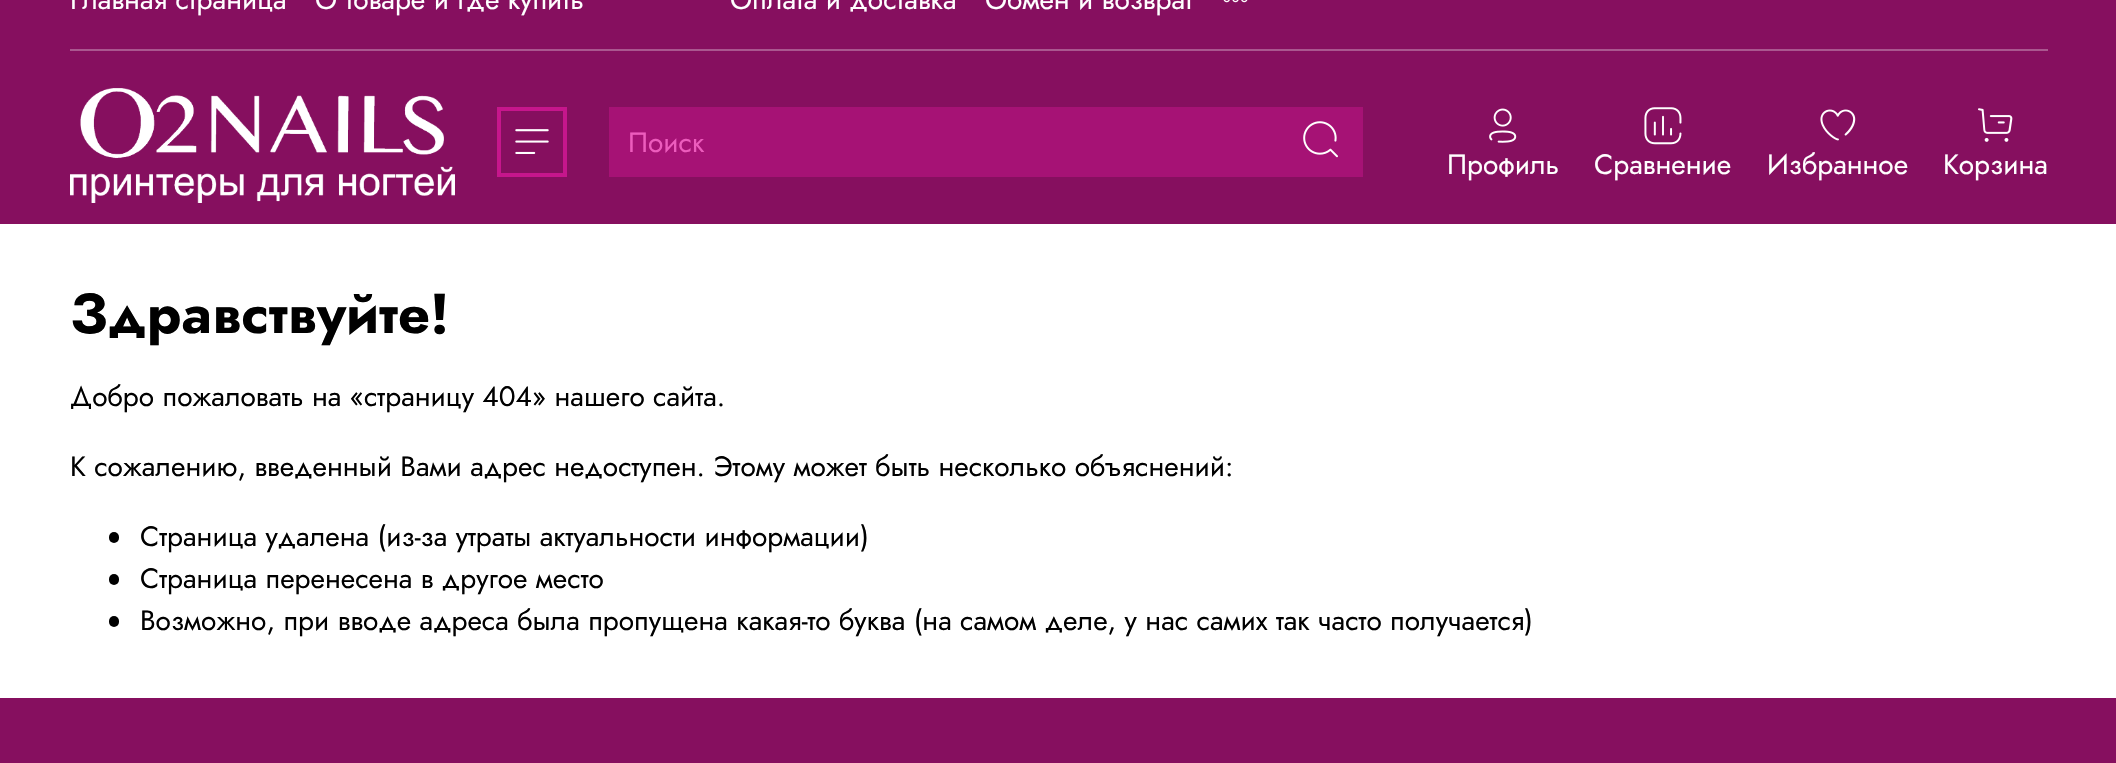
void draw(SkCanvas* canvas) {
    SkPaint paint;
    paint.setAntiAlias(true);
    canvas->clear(0xFFFFFFFF);
    paint.setColor(0xFF860F5F);
    canvas->drawRect(SkRect::MakeXYWH(0, 0, 2116, 224), paint);
    SkFont font1(fontMgr->matchFamilyStyle("Jost", SkFontStyle::Normal()), 28);
    font1.setSubpixel(true);
    paint.setColor(0xFFFFFFFF);
    canvas->drawString("Главная страница", 70, 9, font1, paint);
    canvas->drawString("О товаре и где купить", 315, 9, font1, paint);
    canvas->drawString("Оплата и доставка", 730, 9, font1, paint);
    canvas->drawString("Обмен и возврат", 985, 9, font1, paint);
    canvas->drawImageRect(SkImages::DeferredFromEncodedData(SkData::MakeFromFileName("img1.png")), SkRect::MakeXYWH(1223, 0, 25, 3), SkSamplingOptions());
    paint.setColor(0xFFAA578F);
    canvas->drawRect(SkRect::MakeXYWH(70, 49, 1978, 2), paint);
    canvas->drawImageRect(SkImages::DeferredFromEncodedData(SkData::MakeFromFileName("img2.png")), SkRect::MakeXYWH(70, 88, 385, 115), SkSamplingOptions());
    paint.setStyle(SkPaint::kStroke_Style);
    paint.setStrokeWidth(4);
    paint.setColor(0xFFC6168C);
    canvas->drawRect(SkRect::MakeXYWH(499, 109, 66, 66), paint);
    canvas->drawImageRect(SkImages::DeferredFromEncodedData(SkData::MakeFromFileName("img3.png")), SkRect::MakeXYWH(515, 129, 34, 25), SkSamplingOptions());
    paint.setStyle(SkPaint::kFill_Style);
    paint.setColor(0xFFA61275);
    canvas->drawRect(SkRect::MakeXYWH(609, 107, 754, 70), paint);
    paint.setColor(0xFFED5CBD);
    canvas->drawString("Поиск", 628, 152, font1, paint);
    canvas->drawImageRect(SkImages::DeferredFromEncodedData(SkData::MakeFromFileName("img4.png")), SkRect::MakeXYWH(1303, 121, 35, 37), SkSamplingOptions());
    canvas->drawImageRect(SkImages::DeferredFromEncodedData(SkData::MakeFromFileName("img5.png")), SkRect::MakeXYWH(1489, 108, 28, 35), SkSamplingOptions());
    paint.setColor(0xFFFFFFFF);
    canvas->drawString("Профиль", 1447, 174, font1, paint);
    canvas->drawImageRect(SkImages::DeferredFromEncodedData(SkData::MakeFromFileName("img6.png")), SkRect::MakeXYWH(1644, 107, 38, 38), SkSamplingOptions());
    canvas->drawString("Сравнение", 1594, 174, font1, paint);
    canvas->drawImageRect(SkImages::DeferredFromEncodedData(SkData::MakeFromFileName("img7.png")), SkRect::MakeXYWH(1820, 109, 36, 32), SkSamplingOptions());
    canvas->drawString("Избранное", 1767, 174, font1, paint);
    canvas->drawImageRect(SkImages::DeferredFromEncodedData(SkData::MakeFromFileName("img8.png")), SkRect::MakeXYWH(1978, 108, 35, 34), SkSamplingOptions());
    canvas->drawString("Корзина", 1943, 174, font1, paint);
    SkFont font2(fontMgr->matchFamilyStyle("Jost", SkFontStyle::Bold()), 56);
    font2.setSubpixel(true);
    paint.setColor(0xFF000000);
    canvas->drawString("Здравствуйте!", 70, 333, font2, paint);
    canvas->drawString("Добро пожаловать на «страницу 404» нашего сайта.", 70, 406, font1, paint);
    canvas->drawString("К сожалению, введенный Вами адрес недоступен. Этому может быть несколько объяснений:", 70, 476, font1, paint);
    canvas->drawRoundRect(SkRect::MakeXYWH(109, 532, 10, 11), 5, 5, paint);
    canvas->drawString("Страница удалена (из-за утраты актуальности информации)", 140, 546, font1, paint);
    canvas->drawRoundRect(SkRect::MakeXYWH(109, 574, 10, 11), 5, 5, paint);
    canvas->drawString("Страница перенесена в другое место", 140, 588, font1, paint);
    canvas->drawRoundRect(SkRect::MakeXYWH(109, 616, 10, 11), 5, 5, paint);
    canvas->drawString("Возможно, при вводе адреса была пропущена какая-то буква (на самом деле, у нас самих так часто получается)", 140, 630, font1, paint);
    paint.setColor(0xFF860F5F);
    canvas->drawRect(SkRect::MakeXYWH(0, 698, 2116, 65), paint);
}
